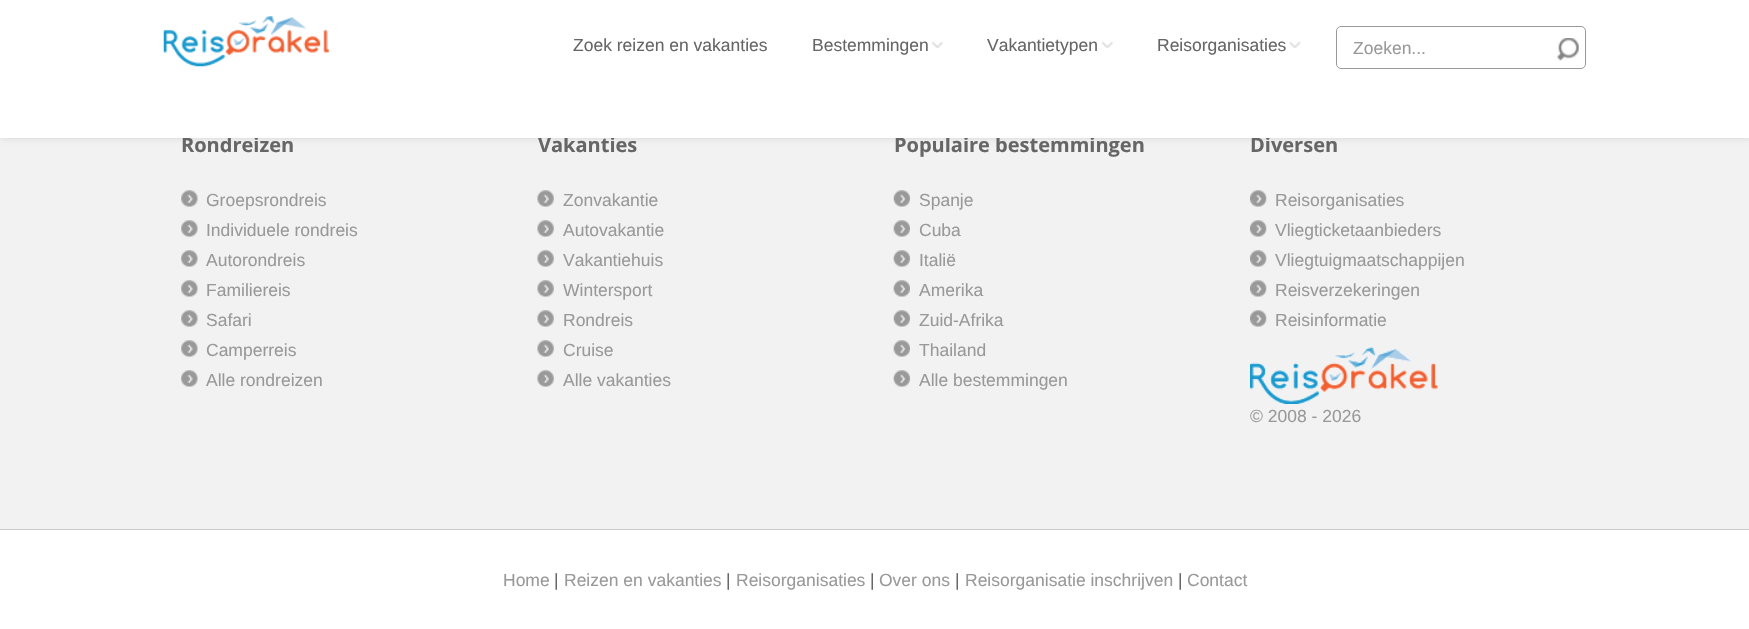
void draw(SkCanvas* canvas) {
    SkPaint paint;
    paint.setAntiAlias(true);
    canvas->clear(0xFFF2F2F2);
    paint.setColor(0x21000000);
    paint.setMaskFilter(SkMaskFilter::MakeBlur(kNormal_SkBlurStyle, 3));
    canvas->drawRect(SkRect::MakeXYWH(0, 0, 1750, 138), paint);
    paint.setMaskFilter(nullptr);
    SkFont font1(fontMgr->matchFamilyStyle("Open Sans", SkFontStyle::Bold()), 20);
    font1.setSubpixel(true);
    paint.setColor(0xFF666666);
    canvas->drawString("Rondreizen", 181, 152, font1, paint);
    canvas->drawString("Vakanties", 538, 152, font1, paint);
    canvas->drawString("Populaire bestemmingen", 894, 152, font1, paint);
    canvas->drawString("Diversen", 1250, 152, font1, paint);
    paint.setColor(0xFFFFFFFF);
    canvas->drawRect(SkRect::MakeXYWH(0, 0, 1749, 138), paint);
    canvas->drawImageRect(SkImages::DeferredFromEncodedData(SkData::MakeFromFileName("img1.png")), SkRect::MakeXYWH(163, 16, 166, 51), SkSamplingOptions());
    SkFont font2(fontMgr->matchFamilyStyle("Liberation Sans", SkFontStyle::Normal()), 17.5f);
    font2.setSubpixel(true);
    paint.setColor(0xFF666666);
    canvas->drawString("Zoek reizen en vakanties", 573, 51, font2, paint);
    canvas->drawString("Bestemmingen", 812, 51, font2, paint);
    canvas->drawImageRect(SkImages::DeferredFromEncodedData(SkData::MakeFromFileName("img2.png")), SkRect::MakeXYWH(931, 41, 12, 7), SkSamplingOptions());
    canvas->drawString("Vakantietypen", 987, 51, font2, paint);
    canvas->drawImageRect(SkImages::DeferredFromEncodedData(SkData::MakeFromFileName("img2.png")), SkRect::MakeXYWH(1101, 41, 12, 7), SkSamplingOptions());
    canvas->drawString("Reisorganisaties", 1157, 51, font2, paint);
    canvas->drawImageRect(SkImages::DeferredFromEncodedData(SkData::MakeFromFileName("img3.png")), SkRect::MakeXYWH(1289, 41, 12, 7), SkSamplingOptions());
    paint.setStyle(SkPaint::kStroke_Style);
    paint.setStrokeWidth(1);
    paint.setColor(0xFF999999);
    canvas->drawRoundRect(SkRect::MakeXYWH(1336.5f, 26.5f, 249, 42), 4.5f, 4.5f, paint);
    paint.setStyle(SkPaint::kFill_Style);
    canvas->drawString("Zoeken...", 1353, 54, font2, paint);
    canvas->drawImageRect(SkImages::DeferredFromEncodedData(SkData::MakeFromFileName("img4.png")), SkRect::MakeXYWH(1557, 38, 22, 23), SkSamplingOptions());
    paint.setColor(0xFFCCCCCC);
    canvas->drawRect(SkRect::MakeXYWH(0, 529, 1749, 1), paint);
    canvas->drawImageRect(SkImages::DeferredFromEncodedData(SkData::MakeFromFileName("img5.png")), SkRect::MakeXYWH(181, 190, 17, 17), SkSamplingOptions());
    paint.setColor(0xFF999999);
    canvas->drawString("Groepsrondreis", 206, 206, font2, paint);
    canvas->drawImageRect(SkImages::DeferredFromEncodedData(SkData::MakeFromFileName("img5.png")), SkRect::MakeXYWH(181, 220, 17, 17), SkSamplingOptions());
    canvas->drawString("Individuele rondreis", 206, 236, font2, paint);
    canvas->drawImageRect(SkImages::DeferredFromEncodedData(SkData::MakeFromFileName("img5.png")), SkRect::MakeXYWH(181, 250, 17, 17), SkSamplingOptions());
    canvas->drawString("Autorondreis", 206, 266, font2, paint);
    canvas->drawImageRect(SkImages::DeferredFromEncodedData(SkData::MakeFromFileName("img6.png")), SkRect::MakeXYWH(181, 280, 17, 17), SkSamplingOptions());
    canvas->drawString("Familiereis", 206, 296, font2, paint);
    canvas->drawImageRect(SkImages::DeferredFromEncodedData(SkData::MakeFromFileName("img5.png")), SkRect::MakeXYWH(181, 310, 17, 17), SkSamplingOptions());
    canvas->drawString("Safari", 206, 326, font2, paint);
    canvas->drawImageRect(SkImages::DeferredFromEncodedData(SkData::MakeFromFileName("img5.png")), SkRect::MakeXYWH(181, 340, 17, 17), SkSamplingOptions());
    canvas->drawString("Camperreis", 206, 356, font2, paint);
    canvas->drawImageRect(SkImages::DeferredFromEncodedData(SkData::MakeFromFileName("img5.png")), SkRect::MakeXYWH(181, 370, 17, 17), SkSamplingOptions());
    canvas->drawString("Alle rondreizen", 206, 386, font2, paint);
    canvas->drawImageRect(SkImages::DeferredFromEncodedData(SkData::MakeFromFileName("img7.png")), SkRect::MakeXYWH(537, 190, 17, 17), SkSamplingOptions());
    canvas->drawString("Zonvakantie", 563, 206, font2, paint);
    canvas->drawImageRect(SkImages::DeferredFromEncodedData(SkData::MakeFromFileName("img7.png")), SkRect::MakeXYWH(537, 220, 17, 17), SkSamplingOptions());
    canvas->drawString("Autovakantie", 563, 236, font2, paint);
    canvas->drawImageRect(SkImages::DeferredFromEncodedData(SkData::MakeFromFileName("img7.png")), SkRect::MakeXYWH(537, 250, 17, 17), SkSamplingOptions());
    canvas->drawString("Vakantiehuis", 563, 266, font2, paint);
    canvas->drawImageRect(SkImages::DeferredFromEncodedData(SkData::MakeFromFileName("img8.png")), SkRect::MakeXYWH(537, 280, 17, 17), SkSamplingOptions());
    canvas->drawString("Wintersport", 563, 296, font2, paint);
    canvas->drawImageRect(SkImages::DeferredFromEncodedData(SkData::MakeFromFileName("img7.png")), SkRect::MakeXYWH(537, 310, 17, 17), SkSamplingOptions());
    canvas->drawString("Rondreis", 563, 326, font2, paint);
    canvas->drawImageRect(SkImages::DeferredFromEncodedData(SkData::MakeFromFileName("img7.png")), SkRect::MakeXYWH(537, 340, 17, 17), SkSamplingOptions());
    canvas->drawString("Cruise", 563, 356, font2, paint);
    canvas->drawImageRect(SkImages::DeferredFromEncodedData(SkData::MakeFromFileName("img7.png")), SkRect::MakeXYWH(537, 370, 17, 17), SkSamplingOptions());
    canvas->drawString("Alle vakanties", 563, 386, font2, paint);
    canvas->drawImageRect(SkImages::DeferredFromEncodedData(SkData::MakeFromFileName("img9.png")), SkRect::MakeXYWH(893, 190, 17, 17), SkSamplingOptions());
    canvas->drawString("Spanje", 919, 206, font2, paint);
    canvas->drawImageRect(SkImages::DeferredFromEncodedData(SkData::MakeFromFileName("img9.png")), SkRect::MakeXYWH(893, 220, 17, 17), SkSamplingOptions());
    canvas->drawString("Cuba", 919, 236, font2, paint);
    canvas->drawImageRect(SkImages::DeferredFromEncodedData(SkData::MakeFromFileName("img9.png")), SkRect::MakeXYWH(893, 250, 17, 17), SkSamplingOptions());
    canvas->drawString("Italië", 919, 266, font2, paint);
    canvas->drawImageRect(SkImages::DeferredFromEncodedData(SkData::MakeFromFileName("img10.png")), SkRect::MakeXYWH(893, 280, 17, 17), SkSamplingOptions());
    canvas->drawString("Amerika", 919, 296, font2, paint);
    canvas->drawImageRect(SkImages::DeferredFromEncodedData(SkData::MakeFromFileName("img9.png")), SkRect::MakeXYWH(893, 310, 17, 17), SkSamplingOptions());
    canvas->drawString("Zuid-Afrika", 919, 326, font2, paint);
    canvas->drawImageRect(SkImages::DeferredFromEncodedData(SkData::MakeFromFileName("img9.png")), SkRect::MakeXYWH(893, 340, 17, 17), SkSamplingOptions());
    canvas->drawString("Thailand", 919, 356, font2, paint);
    canvas->drawImageRect(SkImages::DeferredFromEncodedData(SkData::MakeFromFileName("img9.png")), SkRect::MakeXYWH(893, 370, 17, 17), SkSamplingOptions());
    canvas->drawString("Alle bestemmingen", 919, 386, font2, paint);
    canvas->drawImageRect(SkImages::DeferredFromEncodedData(SkData::MakeFromFileName("img11.png")), SkRect::MakeXYWH(1250, 190, 17, 17), SkSamplingOptions());
    canvas->drawString("Reisorganisaties", 1275, 206, font2, paint);
    canvas->drawImageRect(SkImages::DeferredFromEncodedData(SkData::MakeFromFileName("img11.png")), SkRect::MakeXYWH(1250, 220, 17, 17), SkSamplingOptions());
    canvas->drawString("Vliegticketaanbieders", 1275, 236, font2, paint);
    canvas->drawImageRect(SkImages::DeferredFromEncodedData(SkData::MakeFromFileName("img11.png")), SkRect::MakeXYWH(1250, 250, 17, 17), SkSamplingOptions());
    canvas->drawString("Vliegtuigmaatschappijen", 1275, 266, font2, paint);
    canvas->drawImageRect(SkImages::DeferredFromEncodedData(SkData::MakeFromFileName("img12.png")), SkRect::MakeXYWH(1250, 280, 17, 17), SkSamplingOptions());
    canvas->drawString("Reisverzekeringen", 1275, 296, font2, paint);
    canvas->drawImageRect(SkImages::DeferredFromEncodedData(SkData::MakeFromFileName("img11.png")), SkRect::MakeXYWH(1250, 310, 17, 17), SkSamplingOptions());
    canvas->drawString("Reisinformatie", 1275, 326, font2, paint);
    canvas->drawImageRect(SkImages::DeferredFromEncodedData(SkData::MakeFromFileName("img13.png")), SkRect::MakeXYWH(1250, 347, 188, 57), SkSamplingOptions());
    canvas->drawString("© 2008 - 2026", 1250, 422, font2, paint);
    paint.setColor(0xFFFFFFFF);
    canvas->drawRect(SkRect::MakeXYWH(0, 530, 1749, 99), paint);
    paint.setColor(0xFF999999);
    canvas->drawString("Home", 503, 586, font2, paint);
    paint.setColor(0xFF666666);
    canvas->drawString("|", 554, 586, font2, paint);
    paint.setColor(0xFF999999);
    canvas->drawString("Reizen en vakanties", 564, 586, font2, paint);
    paint.setColor(0xFF666666);
    canvas->drawString("|", 726, 586, font2, paint);
    paint.setColor(0xFF999999);
    canvas->drawString("Reisorganisaties", 736, 586, font2, paint);
    paint.setColor(0xFF666666);
    canvas->drawString("|", 870, 586, font2, paint);
    paint.setColor(0xFF999999);
    canvas->drawString("Over ons", 879, 586, font2, paint);
    paint.setColor(0xFF666666);
    canvas->drawString("|", 955, 586, font2, paint);
    paint.setColor(0xFF999999);
    canvas->drawString("Reisorganisatie inschrijven", 965, 586, font2, paint);
    paint.setColor(0xFF666666);
    canvas->drawString("|", 1178, 586, font2, paint);
    paint.setColor(0xFF999999);
    canvas->drawString("Contact", 1187, 586, font2, paint);
}
